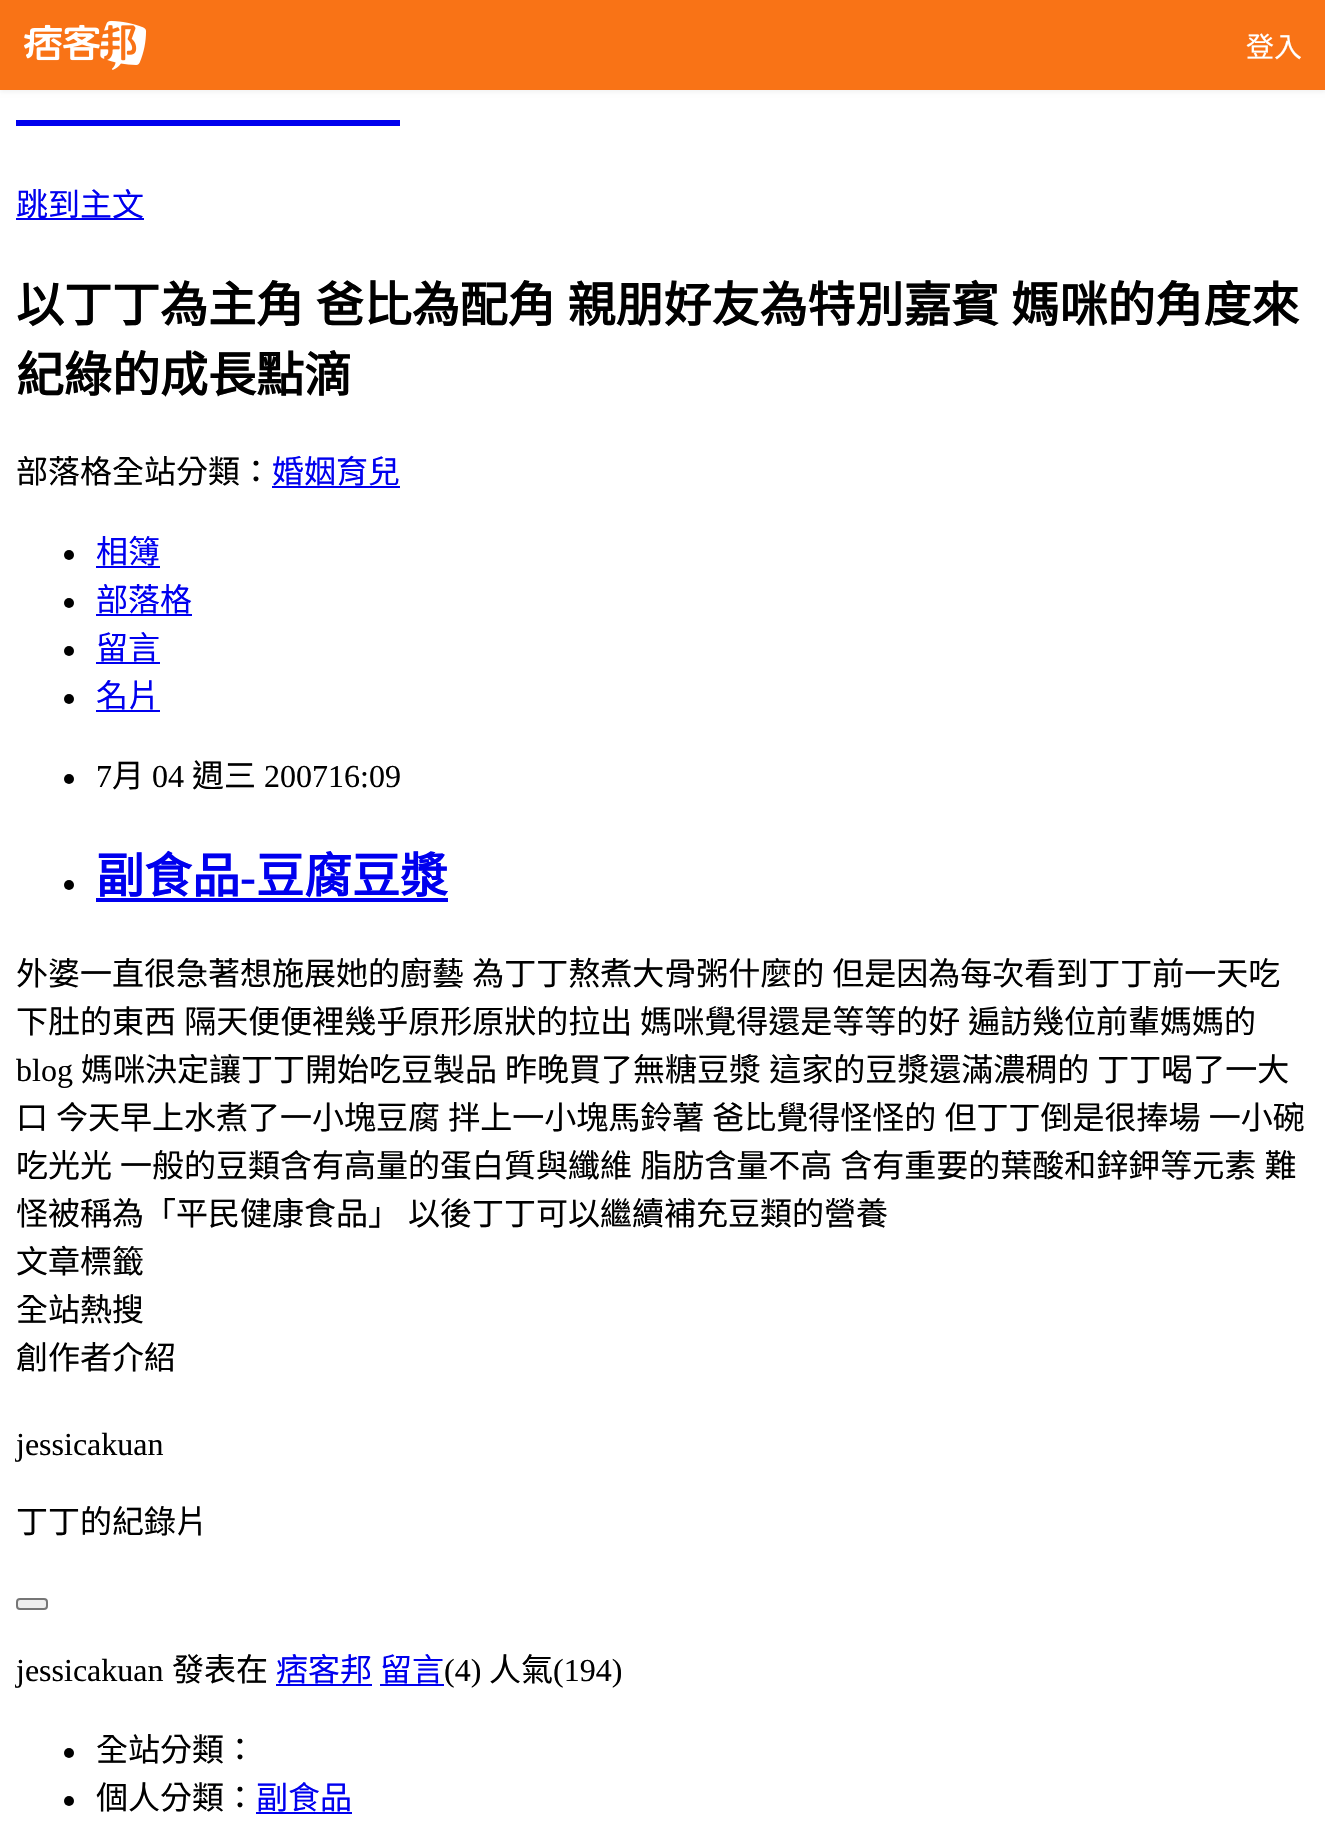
void draw(SkCanvas* canvas) {
    SkPaint paint;
    paint.setAntiAlias(true);
    auto spacedText = [&](const char* s, float x, float y, const SkFont& font, const SkPaint& ink, float letter, float word) {
        std::vector<SkGlyphID> glyphs(font.countText(s, strlen(s), SkTextEncoding::kUTF8));
        std::vector<float> xs(glyphs.size());
        font.textToGlyphs(s, strlen(s), SkTextEncoding::kUTF8, glyphs);
        font.getXPos(glyphs, xs, x);
        float extra = 0;
        for (size_t i = 0; i < glyphs.size(); i++) {
            xs[i] += extra;
            extra += letter + word * (glyphs[i] == font.unicharToGlyph(' '));
        }
        canvas->drawTextBlob(SkTextBlob::MakeFromPosHGlyphs(glyphs, xs, y, font), 0, 0, ink);
    };
    canvas->clear(0xFFFFFFFF);
    paint.setColor(0x0D000000);
    paint.setMaskFilter(SkMaskFilter::MakeBlur(kNormal_SkBlurStyle, 2));
    canvas->drawRect(SkRect::MakeXYWH(0, 2, 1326, 90), paint);
    paint.setMaskFilter(nullptr);
    paint.setColor(0xFFF97316);
    canvas->drawRect(SkRect::MakeXYWH(0, 0, 1325, 90), paint);
    canvas->drawImageRect(SkImages::DeferredFromEncodedData(SkData::MakeFromFileName("img1.png")), SkRect::MakeXYWH(24, 20, 123, 50), SkSamplingOptions());
    SkFont font1(fontMgr->matchFamilyStyle("Noto Sans CJK TC", SkFontStyle::Normal()), 28);
    font1.setSubpixel(true);
    paint.setColor(0xFFFFFFFF);
    canvas->drawString("登入", 1246, 57, font1, paint);
    paint.setColor(0xFF0000EE);
    canvas->drawRect(SkRect::MakeXYWH(16, 120, 384, 6), paint);
    canvas->drawRect(SkRect::MakeXYWH(16, 218, 128, 2), paint);
    SkFont font2(fontMgr->matchFamilyStyle("Noto Sans CJK TC", SkFontStyle::Normal()), 32);
    font2.setSubpixel(true);
    canvas->drawString("跳到主文", 16, 216, font2, paint);
    SkFont font3(fontMgr->matchFamilyStyle("Noto Sans CJK TC", SkFontStyle::Bold()), 48);
    font3.setSubpixel(true);
    paint.setColor(0xFF000000);
    spacedText("以丁丁為主角 爸比為配角 親朋好友為特別嘉賓 媽咪的角度來", 16, 322, font3, paint, 0, 1);
    canvas->drawString("紀綠的成長點滴", 16, 392, font3, paint);
    canvas->drawString("部落格全站分類：", 16, 483, font2, paint);
    paint.setColor(0xFF0000EE);
    canvas->drawString("婚姻育兒", 272, 483, font2, paint);
    canvas->drawRect(SkRect::MakeXYWH(272, 486, 128, 2), paint);
    paint.setColor(0xFF000000);
    canvas->drawCircle(69, 555, 5, paint);
    paint.setColor(0xFF0000EE);
    canvas->drawString("相簿", 96, 563, font2, paint);
    canvas->drawRect(SkRect::MakeXYWH(96, 566, 64, 2), paint);
    paint.setColor(0xFF000000);
    canvas->drawCircle(69, 603, 5, paint);
    paint.setColor(0xFF0000EE);
    canvas->drawString("部落格", 96, 611, font2, paint);
    canvas->drawRect(SkRect::MakeXYWH(96, 614, 96, 2), paint);
    paint.setColor(0xFF000000);
    canvas->drawCircle(69, 651, 5, paint);
    paint.setColor(0xFF0000EE);
    canvas->drawString("留言", 96, 659, font2, paint);
    canvas->drawRect(SkRect::MakeXYWH(96, 662, 64, 2), paint);
    paint.setColor(0xFF000000);
    canvas->drawCircle(69, 699, 5, paint);
    paint.setColor(0xFF0000EE);
    canvas->drawString("名片", 96, 707, font2, paint);
    canvas->drawRect(SkRect::MakeXYWH(96, 710, 64, 2), paint);
    paint.setColor(0xFF000000);
    canvas->drawCircle(69, 779, 5, paint);
    SkFont font4(fontMgr->matchFamilyStyle("Liberation Serif", SkFontStyle::Normal()), 32);
    font4.setSubpixel(true);
    canvas->drawString("7", 96, 787, font4, paint);
    canvas->drawString("月", 112, 787, font2, paint);
    canvas->drawString("04", 152, 787, font4, paint);
    canvas->drawString("週三", 192, 787, font2, paint);
    canvas->drawString("200716:09", 264, 787, font4, paint);
    canvas->drawCircle(69, 885, 5, paint);
    paint.setColor(0xFF0000EE);
    canvas->drawString("副食品", 96, 893, font3, paint);
    SkFont font5(fontMgr->matchFamilyStyle("Liberation Serif", SkFontStyle::Bold()), 48);
    font5.setSubpixel(true);
    canvas->drawString("-", 240, 893, font5, paint);
    canvas->drawRect(SkRect::MakeXYWH(96, 898, 352, 4), paint);
    canvas->drawString("豆腐豆漿", 256, 893, font3, paint);
    paint.setColor(0xFF000000);
    spacedText("外婆一直很急著想施展她的廚藝 為丁丁熬煮大骨粥什麼的 但是因為每次看到丁丁前一天吃", 16, 985, font2, paint, 0, 1);
    spacedText("下肚的東西 隔天便便裡幾乎原形原狀的拉出 媽咪覺得還是等等的好", 16, 1033, font2, paint, 0, 1);
    canvas->drawString("遍訪幾位前輩媽媽的", 968, 1033, font2, paint);
    canvas->drawString("blog", 16, 1081, font4, paint);
    canvas->drawString("媽咪決定讓丁丁開始吃豆製品", 81, 1081, font2, paint);
    spacedText("昨晚買了無糖豆漿 這家的豆漿還滿濃稠的 丁丁喝了一大", 505, 1081, font2, paint, 0, 1);
    canvas->drawString("口", 16, 1129, font2, paint);
    spacedText("今天早上水煮了一小塊豆腐 拌上一小塊馬鈴薯 爸比覺得怪怪的 但丁丁倒是很捧場 一小碗", 56, 1129, font2, paint, 0, 1);
    canvas->drawString("吃光光", 16, 1177, font2, paint);
    spacedText("一般的豆類含有高量的蛋白質與纖維 脂肪含量不高 含有重要的葉酸和鋅鉀等元素 難", 120, 1177, font2, paint, 0, 1);
    canvas->drawString("怪被稱為「平民健康食品」", 16, 1225, font2, paint);
    canvas->drawString("以後丁丁可以繼續補充豆類的營養", 408, 1225, font2, paint);
    canvas->drawString("文章標籤", 16, 1273, font2, paint);
    canvas->drawString("全站熱搜", 16, 1321, font2, paint);
    canvas->drawString("創作者介紹", 16, 1369, font2, paint);
    canvas->drawString("jessicakuan", 16, 1455, font4, paint);
    canvas->drawString("丁丁的紀錄片", 16, 1533, font2, paint);
    paint.setColor(0xFFEFEFEF);
    canvas->drawRoundRect(SkRect::MakeXYWH(17, 1599, 30, 10), 3, 3, paint);
    paint.setStyle(SkPaint::kStroke_Style);
    paint.setStrokeWidth(2);
    paint.setColor(0xFF767676);
    canvas->drawRoundRect(SkRect::MakeXYWH(17, 1599, 30, 10), 3, 3, paint);
    paint.setStyle(SkPaint::kFill_Style);
    paint.setColor(0xFF000000);
    canvas->drawString("jessicakuan", 16, 1681, font4, paint);
    canvas->drawString("發表在", 172, 1681, font2, paint);
    paint.setColor(0xFF0000EE);
    canvas->drawString("痞客邦", 276, 1681, font2, paint);
    canvas->drawRect(SkRect::MakeXYWH(276, 1684, 96, 2), paint);
    canvas->drawString("留言", 380, 1681, font2, paint);
    canvas->drawRect(SkRect::MakeXYWH(380, 1684, 64, 2), paint);
    paint.setColor(0xFF000000);
    canvas->drawString("(4)", 444, 1681, font4, paint);
    canvas->drawString("人氣", 489, 1681, font2, paint);
    canvas->drawString("(194)", 553, 1681, font4, paint);
    canvas->drawCircle(69, 1753, 5, paint);
    canvas->drawString("全站分類：", 96, 1761, font2, paint);
    canvas->drawCircle(69, 1801, 5, paint);
    canvas->drawString("個人分類：", 96, 1809, font2, paint);
    paint.setColor(0xFF0000EE);
    canvas->drawString("副食品", 256, 1809, font2, paint);
    canvas->drawRect(SkRect::MakeXYWH(256, 1812, 96, 2), paint);
}
